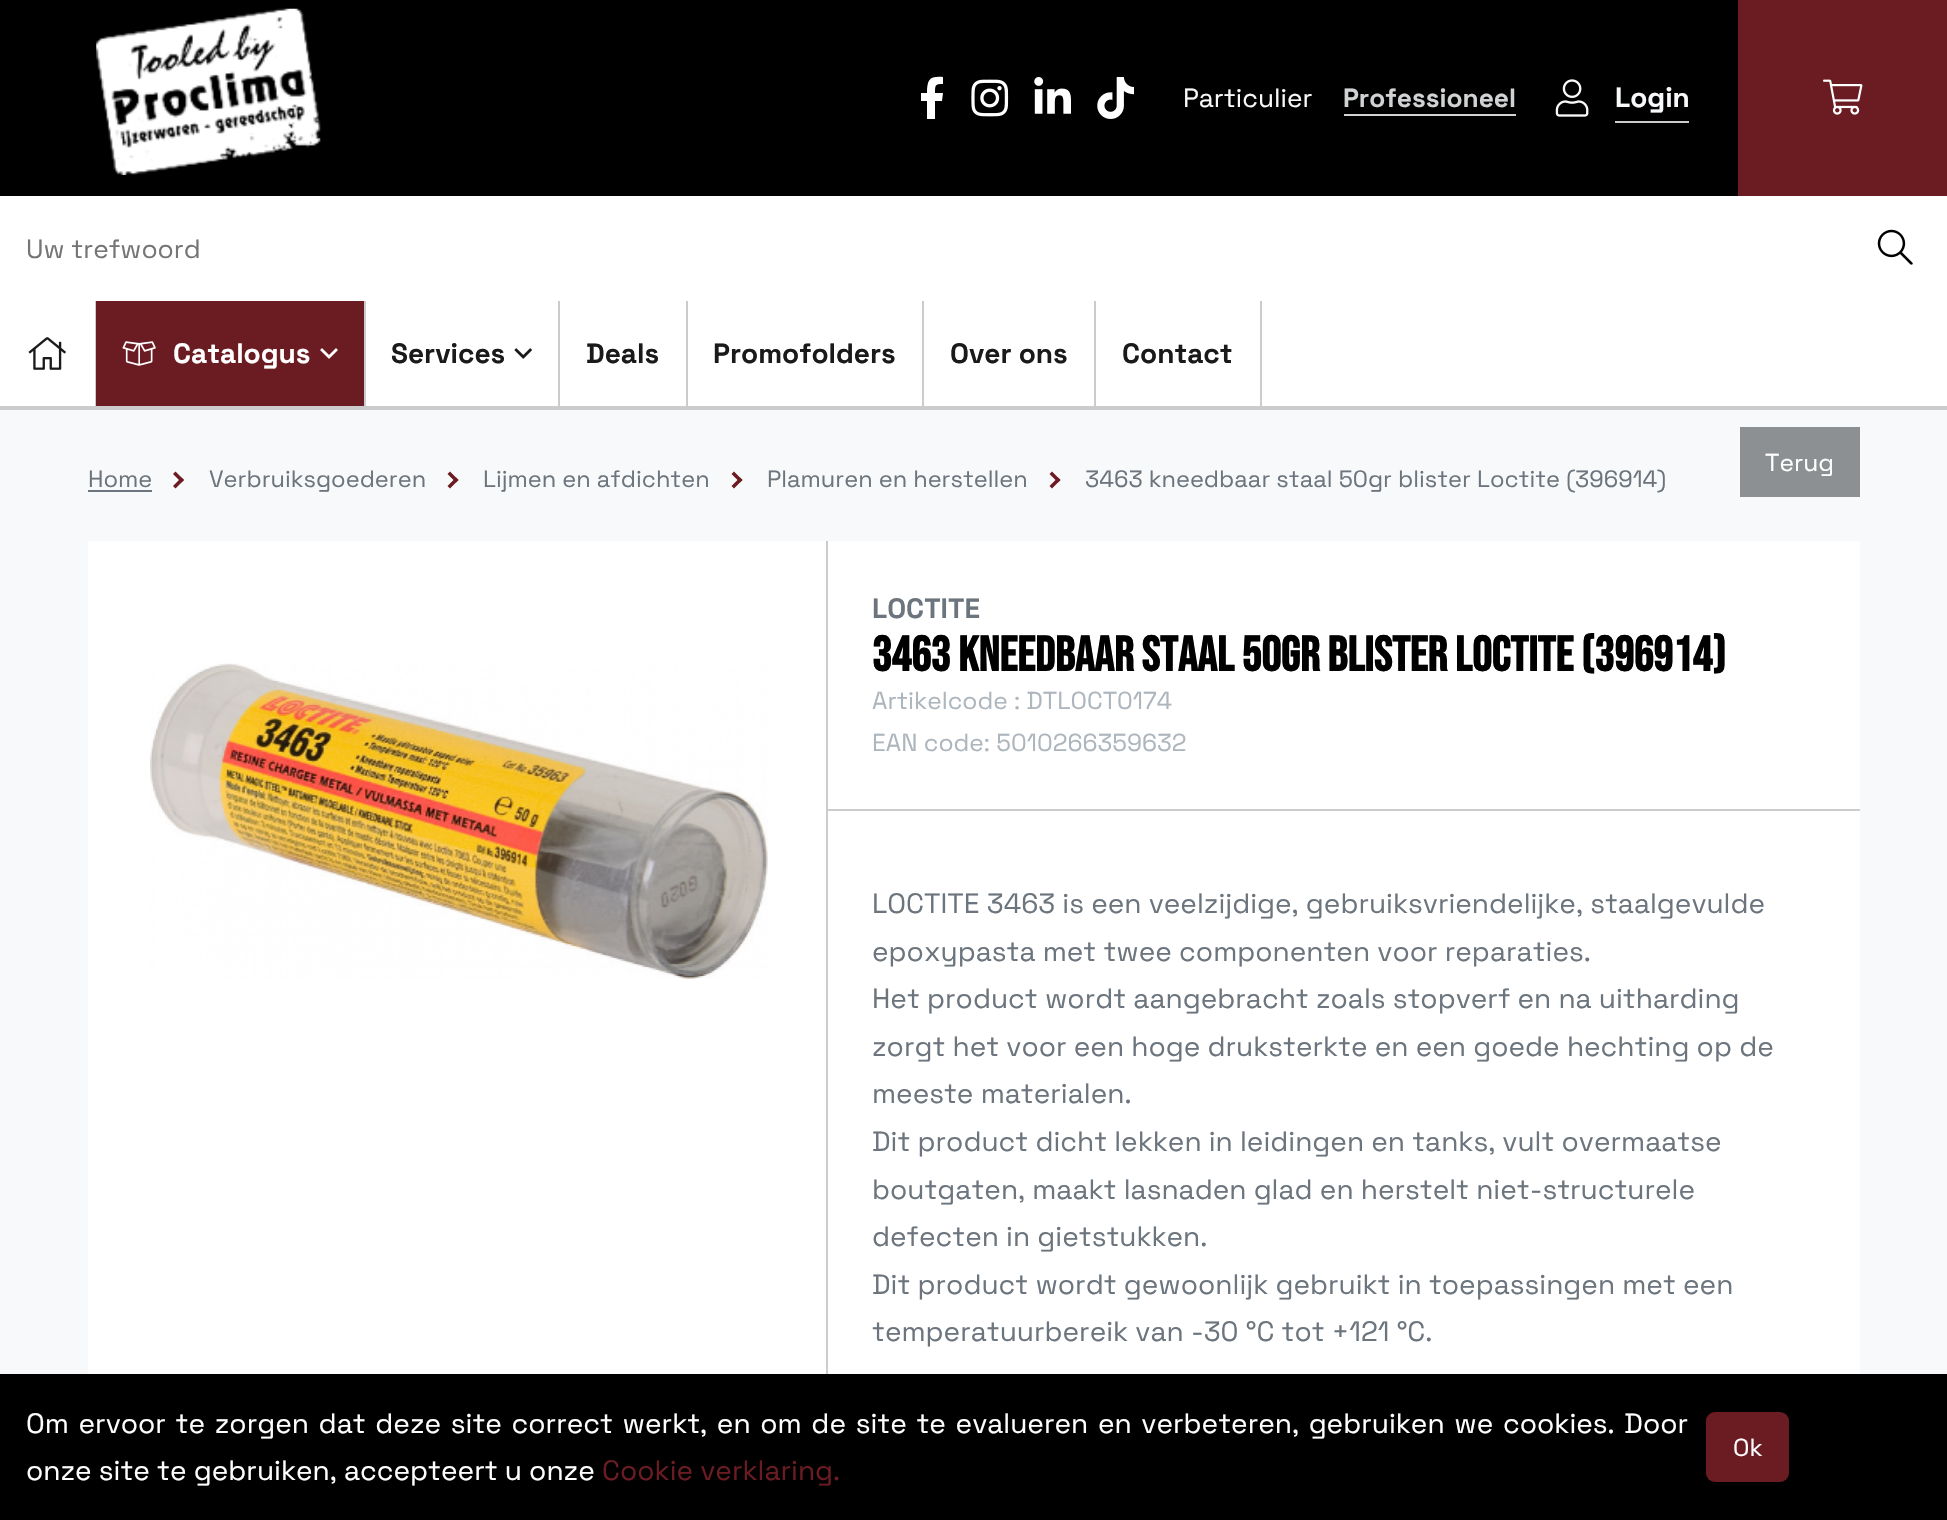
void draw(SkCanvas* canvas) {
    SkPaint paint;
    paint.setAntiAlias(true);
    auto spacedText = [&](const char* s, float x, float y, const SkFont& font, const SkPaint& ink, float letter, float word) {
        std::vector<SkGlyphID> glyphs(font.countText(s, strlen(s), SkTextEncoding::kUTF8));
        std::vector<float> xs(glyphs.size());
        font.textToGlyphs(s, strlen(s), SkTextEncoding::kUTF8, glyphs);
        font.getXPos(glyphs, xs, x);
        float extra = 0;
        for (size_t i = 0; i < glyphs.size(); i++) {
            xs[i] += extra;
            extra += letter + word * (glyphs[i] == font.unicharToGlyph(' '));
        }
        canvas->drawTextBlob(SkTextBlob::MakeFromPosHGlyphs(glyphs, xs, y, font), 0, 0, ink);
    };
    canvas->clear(0xFFF8F9FA);
    paint.setColor(0xFFFFFFFF);
    canvas->drawRect(SkRect::MakeXYWH(0, 196, 1947, 210), paint);
    paint.setColor(0xFFCCCCCC);
    canvas->drawRect(SkRect::MakeXYWH(0, 406, 1947, 4), paint);
    paint.setColor(0xFF000000);
    canvas->drawRect(SkRect::MakeXYWH(0, 0, 1738, 196), paint);
    canvas->drawImageRect(SkImages::DeferredFromEncodedData(SkData::MakeFromFileName("img1.png")), SkRect::MakeXYWH(96, 8, 225, 167), SkSamplingOptions());
    paint.setColor(0xFFFFFFFF);
    canvas->drawPath(SkPathBuilder().moveTo(942, 101).lineTo(935, 101).lineTo(935, 119).lineTo(927, 119).lineTo(927, 101).lineTo(921, 101).lineTo(921, 93).lineTo(927, 93).cubicTo(927, 79, 930, 76, 943, 77).lineTo(943, 84).cubicTo(935, 84, 935, 85, 935, 93).lineTo(943, 93).close().detach(), paint);
    canvas->drawImageRect(SkImages::DeferredFromEncodedData(SkData::MakeFromFileName("img2.png")), SkRect::MakeXYWH(971, 79, 38, 38), SkSamplingOptions());
    canvas->drawImageRect(SkImages::DeferredFromEncodedData(SkData::MakeFromFileName("img3.png")), SkRect::MakeXYWH(1034, 77, 37, 37), SkSamplingOptions());
    canvas->drawImageRect(SkImages::DeferredFromEncodedData(SkData::MakeFromFileName("img4.png")), SkRect::MakeXYWH(1097, 77, 37, 42), SkSamplingOptions());
    SkFont font1(fontMgr->matchFamilyStyle("Space Grotesk", SkFontStyle::Normal()), 26.25f);
    font1.setSubpixel(true);
    paint.setColor(0xFFF8F9FA);
    canvas->drawString("Particulier", 1183, 107, font1, paint);
    SkFont font2(fontMgr->matchFamilyStyle("Space Grotesk", SkFontStyle::Bold()), 26.25f);
    font2.setSubpixel(true);
    paint.setColor(0xFFD0D2D3);
    canvas->drawString("Professioneel", 1343, 107, font2, paint);
    canvas->drawRect(SkRect::MakeXYWH(1344, 114, 172, 2), paint);
    canvas->drawImageRect(SkImages::DeferredFromEncodedData(SkData::MakeFromFileName("img5.png")), SkRect::MakeXYWH(1555, 79, 34, 38), SkSamplingOptions());
    paint.setColor(0xFFCCCCCC);
    canvas->drawRect(SkRect::MakeXYWH(1615, 121, 74, 2), paint);
    SkFont font3(fontMgr->matchFamilyStyle("Space Grotesk", SkFontStyle::Bold()), 28);
    font3.setSubpixel(true);
    paint.setColor(0xFFF8F9FA);
    canvas->drawString("Login", 1615, 107, font3, paint);
    paint.setColor(0xFF6B1C23);
    canvas->drawRect(SkRect::MakeXYWH(1738, 0, 209, 196), paint);
    canvas->drawImageRect(SkImages::DeferredFromEncodedData(SkData::MakeFromFileName("img6.png")), SkRect::MakeXYWH(1823, 79, 40, 36), SkSamplingOptions());
    paint.setColor(0xFF757575);
    canvas->drawString("Uw trefwoord", 26, 258, font1, paint);
    canvas->drawImageRect(SkImages::DeferredFromEncodedData(SkData::MakeFromFileName("img7.png")), SkRect::MakeXYWH(1877, 229, 36, 36), SkSamplingOptions());
    paint.setColor(0xFFCCCCCC);
    canvas->drawRect(SkRect::MakeXYWH(95, 301, 1, 105), paint);
    canvas->drawImageRect(SkImages::DeferredFromEncodedData(SkData::MakeFromFileName("img8.png")), SkRect::MakeXYWH(28, 337, 38, 33), SkSamplingOptions());
    paint.setColor(0xFF6B1C23);
    canvas->drawRect(SkRect::MakeXYWH(96, 301, 268, 105), paint);
    paint.setColor(0xFFCCCCCC);
    canvas->drawRect(SkRect::MakeXYWH(364, 301, 2, 105), paint);
    canvas->drawImageRect(SkImages::DeferredFromEncodedData(SkData::MakeFromFileName("img9.png")), SkRect::MakeXYWH(122, 341, 34, 25), SkSamplingOptions());
    paint.setColor(0xFFFFFFFF);
    canvas->drawString("Catalogus", 173, 363, font3, paint);
    canvas->drawImageRect(SkImages::DeferredFromEncodedData(SkData::MakeFromFileName("img10.png")), SkRect::MakeXYWH(320, 348, 18, 11), SkSamplingOptions());
    paint.setColor(0xFFCCCCCC);
    canvas->drawRect(SkRect::MakeXYWH(558, 301, 2, 105), paint);
    paint.setColor(0xFF1A1A1A);
    canvas->drawString("Services", 391, 363, font3, paint);
    canvas->drawImageRect(SkImages::DeferredFromEncodedData(SkData::MakeFromFileName("img11.png")), SkRect::MakeXYWH(514, 348, 18, 11), SkSamplingOptions());
    paint.setColor(0xFFCCCCCC);
    canvas->drawRect(SkRect::MakeXYWH(686, 301, 2, 105), paint);
    paint.setColor(0xFF1A1A1A);
    canvas->drawString("Deals", 586, 363, font3, paint);
    paint.setColor(0xFFCCCCCC);
    canvas->drawRect(SkRect::MakeXYWH(922, 301, 2, 105), paint);
    paint.setColor(0xFF1A1A1A);
    canvas->drawString("Promofolders", 713, 363, font3, paint);
    paint.setColor(0xFFCCCCCC);
    canvas->drawRect(SkRect::MakeXYWH(1094, 301, 2, 105), paint);
    paint.setColor(0xFF1A1A1A);
    canvas->drawString("Over ons", 950, 363, font3, paint);
    paint.setColor(0xFFCCCCCC);
    canvas->drawRect(SkRect::MakeXYWH(1260, 301, 2, 105), paint);
    paint.setColor(0xFF1A1A1A);
    canvas->drawString("Contact", 1122, 363, font3, paint);
    paint.setColor(0xFF8D9093);
    canvas->drawRect(SkRect::MakeXYWH(1740, 427, 120, 70), paint);
    SkFont font4(fontMgr->matchFamilyStyle("Space Grotesk", SkFontStyle::Normal()), 24.5f);
    font4.setSubpixel(true);
    paint.setColor(0xFFFFFFFF);
    canvas->drawString("Terug", 1765, 471, font4, paint);
    SkFont font5(fontMgr->matchFamilyStyle("Space Grotesk", SkFontStyle::Normal()), 23.6f);
    font5.setSubpixel(true);
    paint.setColor(0xFF6C757D);
    canvas->drawString("Home", 88, 487, font5, paint);
    canvas->drawRect(SkRect::MakeXYWH(88, 490, 64, 2), paint);
    paint.setColor(0xFF6B1C23);
    canvas->drawPath(SkPathBuilder().moveTo(173, 474).lineTo(175.5f, 471.5f).lineTo(184, 480).lineTo(181.5f, 482.5f).close().detach(), paint);
    canvas->drawPath(SkPathBuilder().moveTo(173, 486).lineTo(181.5f, 477.5f).lineTo(184, 480).lineTo(175.5f, 488.5f).close().detach(), paint);
    paint.setColor(0xFF6C757D);
    canvas->drawString("Verbruiksgoederen", 209, 487, font5, paint);
    paint.setColor(0xFF6B1C23);
    canvas->drawPath(SkPathBuilder().moveTo(447.5f, 474).lineTo(450, 471.5f).lineTo(458.5f, 480).lineTo(456, 482.5f).close().detach(), paint);
    canvas->drawPath(SkPathBuilder().moveTo(447.5f, 486).lineTo(456, 477.5f).lineTo(458.5f, 480).lineTo(450, 488.5f).close().detach(), paint);
    paint.setColor(0xFF6C757D);
    canvas->drawString("Lijmen en afdichten", 483, 487, font5, paint);
    paint.setColor(0xFF6B1C23);
    canvas->drawPath(SkPathBuilder().moveTo(731.5f, 474).lineTo(734, 471.5f).lineTo(742.5f, 480).lineTo(740, 482.5f).close().detach(), paint);
    canvas->drawPath(SkPathBuilder().moveTo(731.5f, 486).lineTo(740, 477.5f).lineTo(742.5f, 480).lineTo(734, 488.5f).close().detach(), paint);
    paint.setColor(0xFF6C757D);
    canvas->drawString("Plamuren en herstellen", 767, 487, font5, paint);
    paint.setColor(0xFF6B1C23);
    canvas->drawPath(SkPathBuilder().moveTo(1049.5f, 474).lineTo(1052, 471.5f).lineTo(1060.5f, 480).lineTo(1058, 482.5f).close().detach(), paint);
    canvas->drawPath(SkPathBuilder().moveTo(1049.5f, 486).lineTo(1058, 477.5f).lineTo(1060.5f, 480).lineTo(1052, 488.5f).close().detach(), paint);
    paint.setColor(0xFF6C757D);
    canvas->drawString("3463 kneedbaar staal 50gr blister Loctite (396914)", 1085, 487, font5, paint);
    paint.setColor(0xFFFFFFFF);
    canvas->drawRect(SkRect::MakeXYWH(88, 541, 1772, 833), paint);
    canvas->drawImageRect(SkImages::DeferredFromEncodedData(SkData::MakeFromFileName("img12.png")), SkRect::MakeXYWH(150, 663, 618, 316), SkSamplingOptions());
    paint.setColor(0xFFCCCCCC);
    canvas->drawRect(SkRect::MakeXYWH(826, 541, 2, 833), paint);
    canvas->drawRect(SkRect::MakeXYWH(828, 809, 1032, 2), paint);
    paint.setColor(0xFF6C757D);
    canvas->drawString("LOCTITE", 872, 618, font3, paint);
    SkFont font6(fontMgr->matchFamilyStyle("Bebas Neue", SkFontStyle::Bold()), 49);
    font6.setSubpixel(true);
    paint.setColor(0xFF000000);
    canvas->drawString("3463 kneedbaar staal 50gr blister Loctite (396914)", 872, 671, font6, paint);
    paint.setColor(0xFFADB5BD);
    canvas->drawString("Artikelcode : DTLOCT0174", 872, 709, font4, paint);
    canvas->drawString("EAN code: 5010266359632", 872, 751, font4, paint);
    SkFont font7(fontMgr->matchFamilyStyle("Space Grotesk", SkFontStyle::Normal()), 28);
    font7.setSubpixel(true);
    paint.setColor(0xFF6C757D);
    canvas->drawString("LOCTITE 3463 is een veelzijdige, gebruiksvriendelijke, staalgevulde", 872, 913, font7, paint);
    canvas->drawString("epoxypasta met twee componenten voor reparaties.", 872, 961, font7, paint);
    canvas->drawString("Het product wordt aangebracht zoals stopverf en na uitharding", 872, 1008, font7, paint);
    canvas->drawString("zorgt het voor een hoge druksterkte en een goede hechting op de", 872, 1056, font7, paint);
    canvas->drawString("meeste materialen.", 872, 1103, font7, paint);
    canvas->drawString("Dit product dicht lekken in leidingen en tanks, vult overmaatse", 872, 1151, font7, paint);
    canvas->drawString("boutgaten, maakt lasnaden glad en herstelt niet-structurele", 872, 1199, font7, paint);
    canvas->drawString("defecten in gietstukken.", 872, 1246, font7, paint);
    canvas->drawString("Dit product wordt gewoonlijk gebruikt in toepassingen met een", 872, 1294, font7, paint);
    canvas->drawString("temperatuurbereik van -30 °C tot +121 °C.", 872, 1341, font7, paint);
    paint.setColor(0xFF000000);
    canvas->drawRect(SkRect::MakeXYWH(0, 1374, 1947, 146), paint);
    paint.setColor(0xFFFFFFFF);
    spacedText("Om ervoor te zorgen dat deze site correct werkt, en om de site te evalueren en verbeteren, gebruiken we cookies. Door", 26, 1433, font7, paint, 0, 2.5f);
    canvas->drawString("onze site te gebruiken, accepteert u onze", 26, 1480, font7, paint);
    paint.setColor(0xFF6B1C23);
    canvas->drawString("Cookie verklaring.", 602, 1480, font7, paint);
    canvas->drawRoundRect(SkRect::MakeXYWH(1706, 1412, 83, 70), 9, 9, paint);
    paint.setColor(0xFFFFFFFF);
    canvas->drawString("Ok", 1733, 1456, font4, paint);
}
